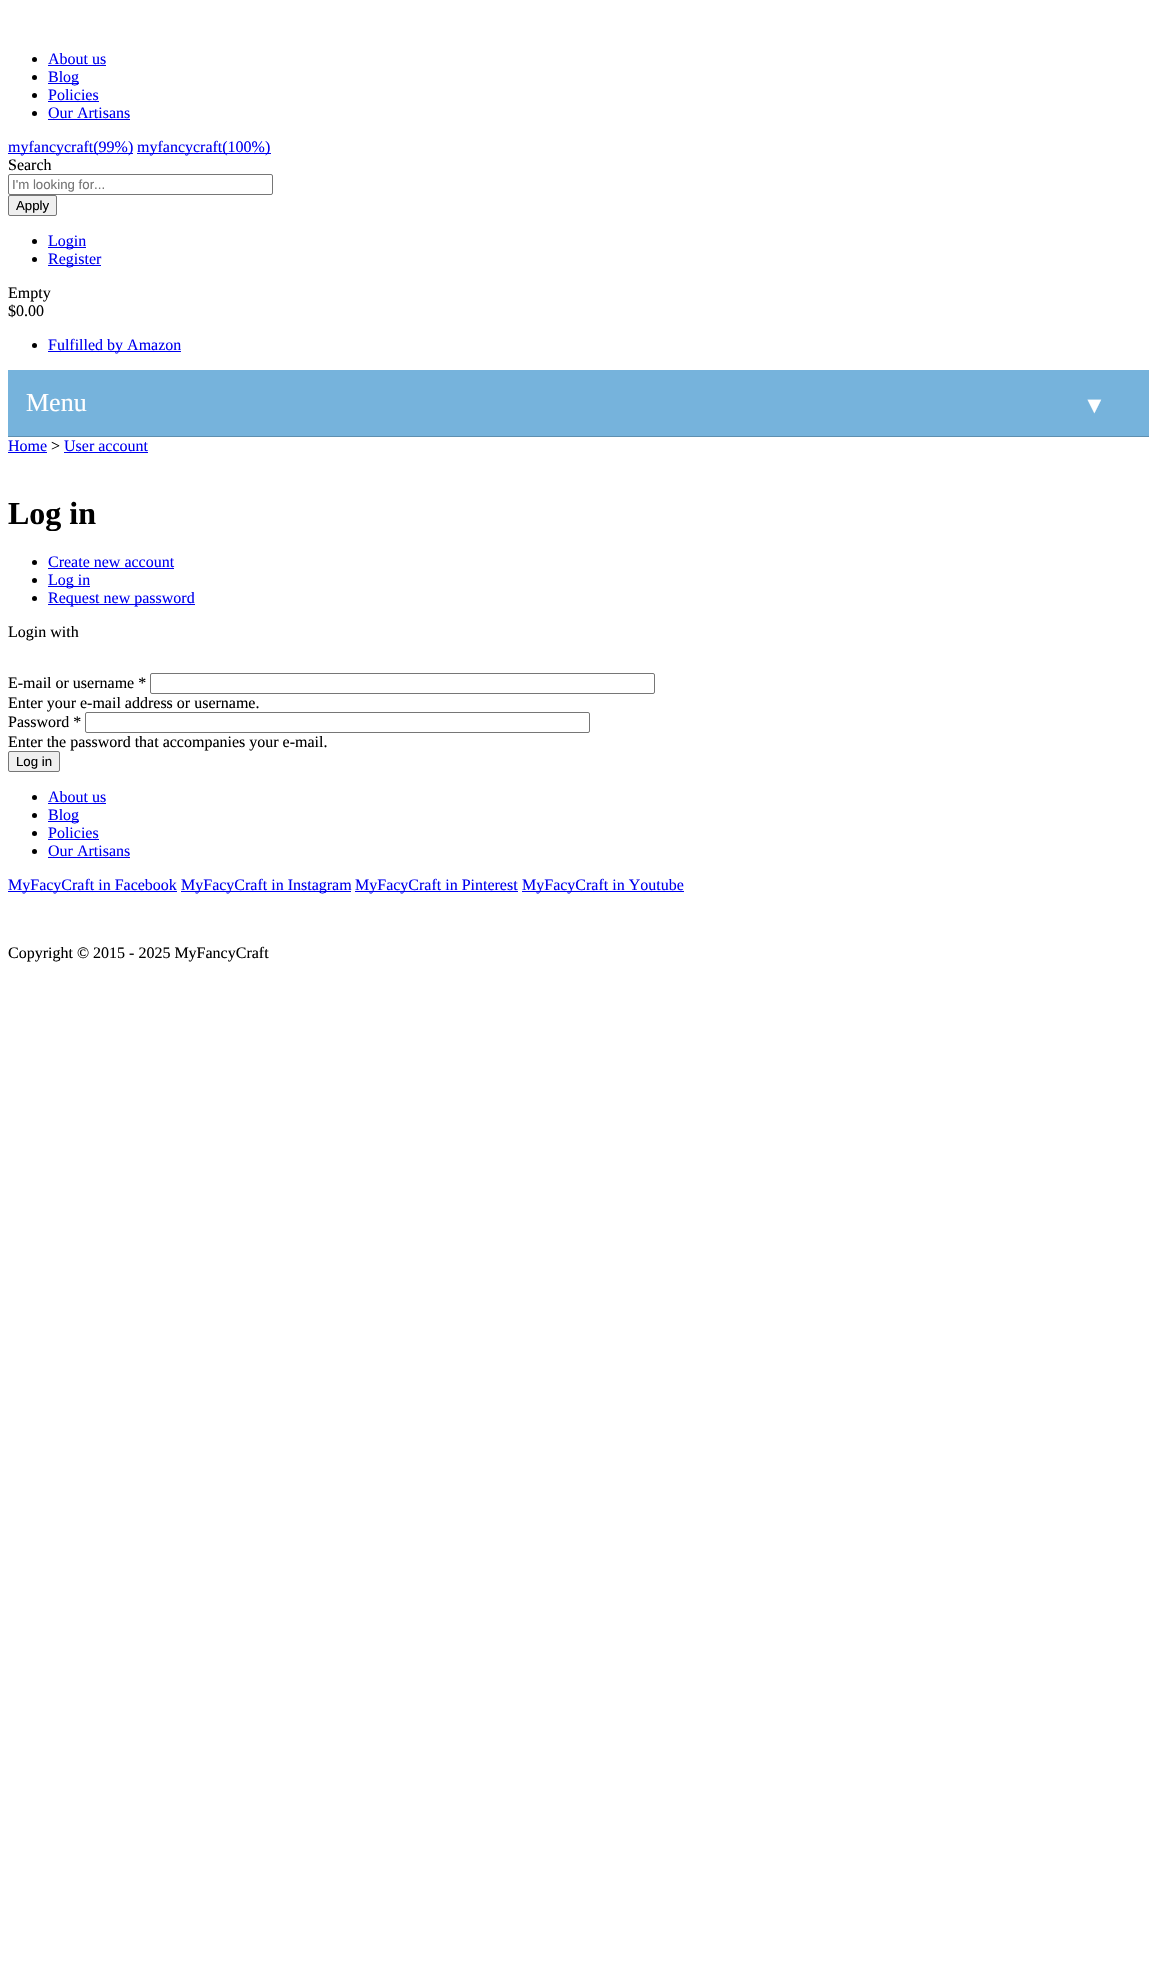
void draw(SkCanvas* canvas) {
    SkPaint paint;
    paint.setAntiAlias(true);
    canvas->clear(0xFFFFFFFF);
    paint.setColor(0xFF000000);
    canvas->drawCircle(34.5f, 59.5f, 2.5f, paint);
    SkFont font1(fontMgr->matchFamilyStyle("Liberation Serif", SkFontStyle::Normal()), 16);
    font1.setSubpixel(true);
    paint.setColor(0xFF0000EE);
    canvas->drawString("About us", 48, 64, font1, paint);
    canvas->drawRect(SkRect::MakeXYWH(48, 65, 58, 1), paint);
    paint.setColor(0xFF000000);
    canvas->drawCircle(34.5f, 77.5f, 2.5f, paint);
    paint.setColor(0xFF0000EE);
    canvas->drawRect(SkRect::MakeXYWH(48, 83, 31, 1), paint);
    canvas->drawString("Blog", 48, 82, font1, paint);
    paint.setColor(0xFF000000);
    canvas->drawCircle(34.5f, 95.5f, 2.5f, paint);
    paint.setColor(0xFF0000EE);
    canvas->drawString("Policies", 48, 100, font1, paint);
    canvas->drawRect(SkRect::MakeXYWH(48, 101, 51, 1), paint);
    paint.setColor(0xFF000000);
    canvas->drawCircle(34.5f, 113.5f, 2.5f, paint);
    paint.setColor(0xFF0000EE);
    canvas->drawString("Our Artisans", 48, 118, font1, paint);
    canvas->drawRect(SkRect::MakeXYWH(48, 119, 82, 1), paint);
    canvas->drawRect(SkRect::MakeXYWH(8, 153, 125, 1), paint);
    canvas->drawString("myfancycraft(99%)", 8, 152, font1, paint);
    canvas->drawRect(SkRect::MakeXYWH(137, 153, 134, 1), paint);
    canvas->drawString("myfancycraft(100%)", 137, 152, font1, paint);
    paint.setColor(0xFF000000);
    canvas->drawString("Search", 8, 170, font1, paint);
    paint.setStyle(SkPaint::kStroke_Style);
    paint.setStrokeWidth(1);
    paint.setColor(0xFF767676);
    canvas->drawRoundRect(SkRect::MakeXYWH(8.5f, 174.5f, 264, 20), 1.5f, 1.5f, paint);
    SkFont font2(fontMgr->matchFamilyStyle("Liberation Sans", SkFontStyle::Normal()), 13.25f);
    font2.setSubpixel(true);
    paint.setStyle(SkPaint::kFill_Style);
    paint.setColor(0xFF757575);
    canvas->drawString("I'm looking for...", 12, 189, font2, paint);
    paint.setColor(0xFFEFEFEF);
    canvas->drawRoundRect(SkRect::MakeXYWH(8.5f, 195.5f, 48, 20), 1.5f, 1.5f, paint);
    paint.setStyle(SkPaint::kStroke_Style);
    paint.setColor(0xFF767676);
    canvas->drawRoundRect(SkRect::MakeXYWH(8.5f, 195.5f, 48, 20), 1.5f, 1.5f, paint);
    paint.setStyle(SkPaint::kFill_Style);
    paint.setColor(0xFF000000);
    canvas->drawString("Apply", 16, 210, font2, paint);
    canvas->drawCircle(34.5f, 241.5f, 2.5f, paint);
    paint.setColor(0xFF0000EE);
    canvas->drawRect(SkRect::MakeXYWH(48, 247, 38, 1), paint);
    canvas->drawString("Login", 48, 246, font1, paint);
    paint.setColor(0xFF000000);
    canvas->drawCircle(34.5f, 259.5f, 2.5f, paint);
    paint.setColor(0xFF0000EE);
    canvas->drawRect(SkRect::MakeXYWH(48, 265, 53, 1), paint);
    canvas->drawString("Register", 48, 264, font1, paint);
    paint.setColor(0xFF000000);
    canvas->drawString("Empty", 8, 298, font1, paint);
    canvas->drawString("$0.00", 8, 316, font1, paint);
    canvas->drawCircle(34.5f, 345.5f, 2.5f, paint);
    paint.setColor(0xFF0000EE);
    canvas->drawRect(SkRect::MakeXYWH(48, 351, 133, 1), paint);
    canvas->drawString("Fulfilled by Amazon", 48, 350, font1, paint);
    paint.setColor(0xFF76B3DC);
    canvas->drawRect(SkRect::MakeXYWH(8, 370, 1141, 66), paint);
    paint.setColor(0xFF5E8FB0);
    canvas->drawRect(SkRect::MakeXYWH(8, 436, 1141, 1), paint);
    SkFont font3(fontMgr->matchFamilyStyle("Liberation Serif", SkFontStyle::Normal()), 26);
    font3.setSubpixel(true);
    paint.setColor(0xFFFFFFFF);
    canvas->drawString("Menu", 26, 411, font3, paint);
    SkFont font4(fontMgr->matchFamilyStyle("Liberation Serif", SkFontStyle::Italic()), 23);
    font4.setSubpixel(true);
    canvas->drawString("▼", 1083, 413, font4, paint);
    paint.setColor(0xFF0000EE);
    canvas->drawString("Home", 8, 451, font1, paint);
    canvas->drawRect(SkRect::MakeXYWH(8, 452, 39, 1), paint);
    paint.setColor(0xFF000000);
    canvas->drawString(">", 51, 451, font1, paint);
    paint.setColor(0xFF0000EE);
    canvas->drawString("User account", 64, 451, font1, paint);
    canvas->drawRect(SkRect::MakeXYWH(64, 452, 84, 1), paint);
    SkFont font5(fontMgr->matchFamilyStyle("Liberation Serif", SkFontStyle::Bold()), 32);
    font5.setSubpixel(true);
    paint.setColor(0xFF000000);
    canvas->drawString("Log in", 8, 524, font5, paint);
    canvas->drawCircle(34.5f, 562.5f, 2.5f, paint);
    paint.setColor(0xFF0000EE);
    canvas->drawString("Create new account", 48, 567, font1, paint);
    canvas->drawRect(SkRect::MakeXYWH(48, 568, 126, 1), paint);
    paint.setColor(0xFF000000);
    canvas->drawCircle(34.5f, 580.5f, 2.5f, paint);
    paint.setColor(0xFF0000EE);
    canvas->drawRect(SkRect::MakeXYWH(48, 586, 42, 1), paint);
    canvas->drawString("Log in", 48, 585, font1, paint);
    paint.setColor(0xFF000000);
    canvas->drawCircle(34.5f, 598.5f, 2.5f, paint);
    paint.setColor(0xFF0000EE);
    canvas->drawRect(SkRect::MakeXYWH(48, 604, 147, 1), paint);
    canvas->drawString("Request new password", 48, 603, font1, paint);
    paint.setColor(0xFF000000);
    canvas->drawString("Login with", 8, 637, font1, paint);
    canvas->drawString("E-mail or username *", 8, 688, font1, paint);
    paint.setStyle(SkPaint::kStroke_Style);
    paint.setColor(0xFF767676);
    canvas->drawRoundRect(SkRect::MakeXYWH(150.5f, 673.5f, 504, 20), 1.5f, 1.5f, paint);
    paint.setStyle(SkPaint::kFill_Style);
    paint.setColor(0xFF000000);
    canvas->drawString("Enter your e-mail address or username.", 8, 708, font1, paint);
    canvas->drawString("Password *", 8, 727, font1, paint);
    paint.setStyle(SkPaint::kStroke_Style);
    paint.setColor(0xFF767676);
    canvas->drawRoundRect(SkRect::MakeXYWH(85.5f, 712.5f, 504, 20), 1.5f, 1.5f, paint);
    paint.setStyle(SkPaint::kFill_Style);
    paint.setColor(0xFF000000);
    canvas->drawString("Enter the password that accompanies your e-mail.", 8, 747, font1, paint);
    paint.setColor(0xFFEFEFEF);
    canvas->drawRoundRect(SkRect::MakeXYWH(8.5f, 751.5f, 51, 20), 1.5f, 1.5f, paint);
    paint.setStyle(SkPaint::kStroke_Style);
    paint.setColor(0xFF767676);
    canvas->drawRoundRect(SkRect::MakeXYWH(8.5f, 751.5f, 51, 20), 1.5f, 1.5f, paint);
    paint.setStyle(SkPaint::kFill_Style);
    paint.setColor(0xFF000000);
    canvas->drawString("Log in", 16, 766, font2, paint);
    canvas->drawCircle(34.5f, 797.5f, 2.5f, paint);
    paint.setColor(0xFF0000EE);
    canvas->drawString("About us", 48, 802, font1, paint);
    canvas->drawRect(SkRect::MakeXYWH(48, 803, 58, 1), paint);
    paint.setColor(0xFF000000);
    canvas->drawCircle(34.5f, 815.5f, 2.5f, paint);
    paint.setColor(0xFF0000EE);
    canvas->drawRect(SkRect::MakeXYWH(48, 821, 31, 1), paint);
    canvas->drawString("Blog", 48, 820, font1, paint);
    paint.setColor(0xFF000000);
    canvas->drawCircle(34.5f, 833.5f, 2.5f, paint);
    paint.setColor(0xFF0000EE);
    canvas->drawString("Policies", 48, 838, font1, paint);
    canvas->drawRect(SkRect::MakeXYWH(48, 839, 51, 1), paint);
    paint.setColor(0xFF000000);
    canvas->drawCircle(34.5f, 851.5f, 2.5f, paint);
    paint.setColor(0xFF0000EE);
    canvas->drawString("Our Artisans", 48, 856, font1, paint);
    canvas->drawRect(SkRect::MakeXYWH(48, 857, 82, 1), paint);
    canvas->drawRect(SkRect::MakeXYWH(8, 891, 169, 1), paint);
    canvas->drawString("MyFacyCraft in Facebook", 8, 890, font1, paint);
    canvas->drawRect(SkRect::MakeXYWH(181, 891, 170, 1), paint);
    canvas->drawString("MyFacyCraft in Instagram", 181, 890, font1, paint);
    canvas->drawRect(SkRect::MakeXYWH(355, 891, 163, 1), paint);
    canvas->drawString("MyFacyCraft in Pinterest", 355, 890, font1, paint);
    canvas->drawRect(SkRect::MakeXYWH(522, 891, 162, 1), paint);
    canvas->drawString("MyFacyCraft in Youtube", 522, 890, font1, paint);
    paint.setColor(0xFF000000);
    canvas->drawString("Copyright © 2015 - 2025 MyFancyCraft", 8, 958, font1, paint);
}
